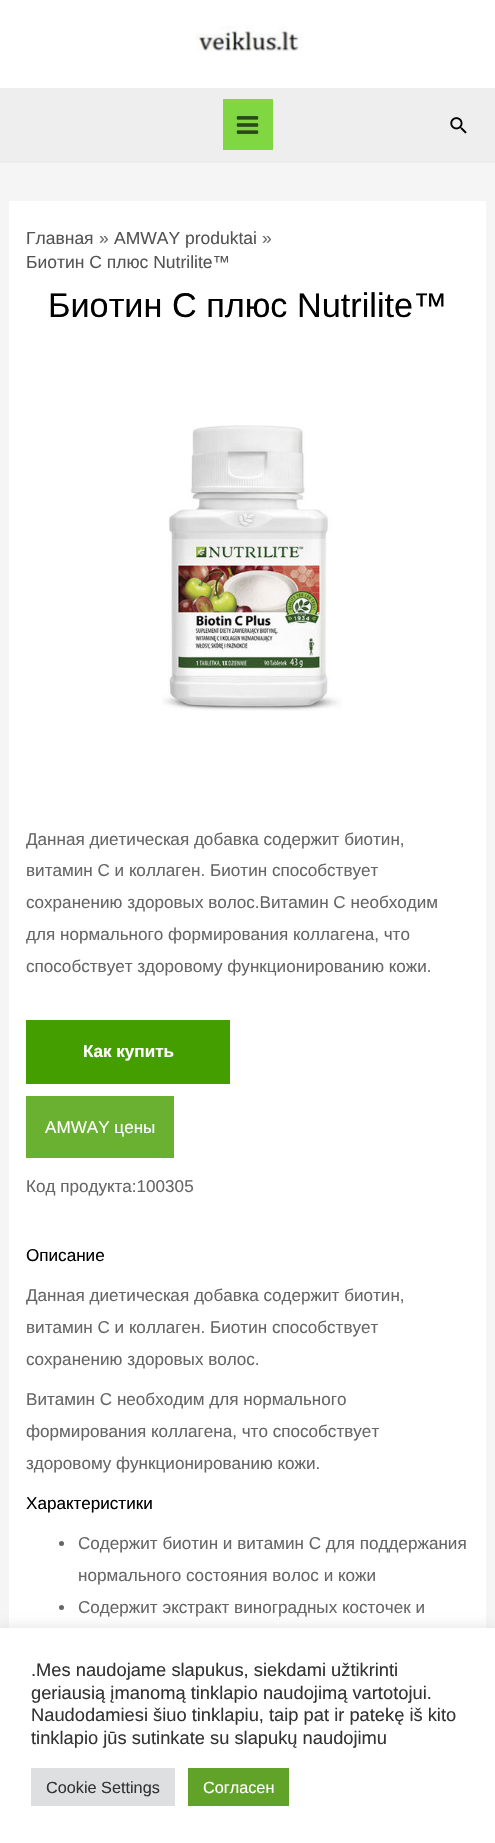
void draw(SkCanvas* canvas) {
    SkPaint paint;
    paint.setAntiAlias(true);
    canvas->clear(0xFFF5F5F5);
    paint.setColor(0xFFFFFFFF);
    canvas->drawRect(SkRect::MakeXYWH(0, 0, 495, 88), paint);
    canvas->drawImageRect(SkImages::DeferredFromEncodedData(SkData::MakeFromFileName("img1.png")), SkRect::MakeXYWH(195, 26, 108, 26), SkSamplingOptions());
    paint.setColor(0xFFEEEEEE);
    canvas->drawRect(SkRect::MakeXYWH(0, 88, 495, 75), paint);
    paint.setColor(0xFFEAEAEA);
    canvas->drawRect(SkRect::MakeXYWH(0, 161, 495, 1), paint);
    paint.setColor(0xFF81D742);
    canvas->drawRect(SkRect::MakeXYWH(223, 99, 50, 51), paint);
    canvas->drawImageRect(SkImages::DeferredFromEncodedData(SkData::MakeFromFileName("img2.png")), SkRect::MakeXYWH(236, 116, 23, 18), SkSamplingOptions());
    canvas->drawImageRect(SkImages::DeferredFromEncodedData(SkData::MakeFromFileName("img3.png")), SkRect::MakeXYWH(450, 117, 17, 17), SkSamplingOptions());
    paint.setColor(0xFFFFFFFF);
    canvas->drawRect(SkRect::MakeXYWH(9, 201, 477, 1427), paint);
    SkFont font1(fontMgr->matchFamilyStyle("Liberation Sans", SkFontStyle::Normal()), 17.5f);
    font1.setSubpixel(true);
    paint.setColor(0xFF545454);
    canvas->drawString("Главная", 26, 244, font1, paint);
    paint.setColor(0xFF666666);
    canvas->drawString("»", 99, 244, font1, paint);
    paint.setColor(0xFF545454);
    canvas->drawString("AMWAY produktai", 114, 244, font1, paint);
    paint.setColor(0xFF666666);
    canvas->drawString("»", 262, 244, font1, paint);
    paint.setColor(0xFF545454);
    canvas->drawString("Биотин C плюс Nutrilite™", 26, 268, font1, paint);
    SkFont font2(fontMgr->matchFamilyStyle("Liberation Sans", SkFontStyle::Normal()), 34.25f);
    font2.setSubpixel(true);
    paint.setColor(0xFF000000);
    canvas->drawString("Биотин C плюс Nutrilite™", 48, 317, font2, paint);
    canvas->drawImageRect(SkImages::DeferredFromEncodedData(SkData::MakeFromFileName("img4.png")), SkRect::MakeXYWH(162, 425, 180, 286), SkSamplingOptions());
    SkFont font3(fontMgr->matchFamilyStyle("Liberation Sans", SkFontStyle::Normal()), 17.1f);
    font3.setSubpixel(true);
    paint.setColor(0xFF666666);
    canvas->drawString("Данная диетическая добавка содержит биотин,", 26, 845, font3, paint);
    canvas->drawString("витамин С и коллаген. Биотин способствует", 26, 876, font3, paint);
    canvas->drawString("сохранению здоровых волос.Витамин C необходим", 26, 908, font3, paint);
    canvas->drawString("для нормального формирования коллагена, что", 26, 940, font3, paint);
    canvas->drawString("способствует здоровому функционированию кожи.", 26, 972, font3, paint);
    paint.setColor(0xFF459E00);
    canvas->drawRect(SkRect::MakeXYWH(26, 1020, 204, 64), paint);
    SkFont font4(fontMgr->matchFamilyStyle("Liberation Sans", SkFontStyle::Bold()), 17.1f);
    font4.setSubpixel(true);
    paint.setColor(0xFFFFFFFF);
    canvas->drawString("Как купить", 83, 1057, font4, paint);
    paint.setColor(0xFF6AB132);
    canvas->drawRect(SkRect::MakeXYWH(26, 1096, 148, 62), paint);
    paint.setColor(0xFFFFFFFF);
    canvas->drawString("AMWAY цены", 45, 1133, font3, paint);
    paint.setColor(0xFF666666);
    canvas->drawString("Код продукта:100305", 26, 1192, font3, paint);
    paint.setColor(0xFF000000);
    canvas->drawString("Описание", 26, 1261, font3, paint);
    paint.setColor(0xFF666666);
    canvas->drawString("Данная диетическая добавка содержит биотин,", 26, 1301, font3, paint);
    canvas->drawString("витамин С и коллаген. Биотин способствует", 26, 1333, font3, paint);
    canvas->drawString("сохранению здоровых волос.", 26, 1365, font3, paint);
    canvas->drawString("Витамин C необходим для нормального", 26, 1405, font3, paint);
    canvas->drawString("формирования коллагена, что способствует", 26, 1437, font3, paint);
    canvas->drawString("здоровому функционированию кожи.", 26, 1469, font3, paint);
    paint.setColor(0xFF000000);
    canvas->drawString("Характеристики", 26, 1509, font3, paint);
    paint.setColor(0xFF666666);
    canvas->drawCircle(61.5f, 1543.5f, 2.5f, paint);
    canvas->drawString("Содержит биотин и витамин С для поддержания", 78, 1549, font3, paint);
    canvas->drawString("нормального состояния волос и кожи", 78, 1581, font3, paint);
    canvas->drawCircle(61.5f, 1607.5f, 2.5f, paint);
    canvas->drawString("Содержит экстракт виноградных косточек и", 78, 1613, font3, paint);
    paint.setColor(0x4DACABAB);
    paint.setMaskFilter(SkMaskFilter::MakeBlur(kNormal_SkBlurStyle, 6));
    canvas->drawRect(SkRect::MakeXYWH(0, 1626, 495, 217), paint);
    paint.setMaskFilter(nullptr);
    paint.setColor(0xFFFFFFFF);
    canvas->drawRect(SkRect::MakeXYWH(0, 1628, 495, 215), paint);
    SkFont font5(fontMgr->matchFamilyStyle("Liberation Sans", SkFontStyle::Normal()), 18.3f);
    font5.setSubpixel(true);
    paint.setColor(0xFF333333);
    canvas->drawString(".Mes naudojame slapukus, siekdami užtikrinti", 31, 1676, font5, paint);
    canvas->drawString("geriausią įmanomą tinklapio naudojimą vartotojui.", 31, 1699, font5, paint);
    canvas->drawString("Naudodamiesi šiuo tinklapiu, taip pat ir patekę iš kito", 31, 1721, font5, paint);
    canvas->drawString("tinklapio jūs sutinkate su slapukų naudojimu", 31, 1744, font5, paint);
    paint.setColor(0xFFDEDFE0);
    canvas->drawRect(SkRect::MakeXYWH(31, 1768, 144, 38), paint);
    SkFont font6(fontMgr->matchFamilyStyle("Liberation Sans", SkFontStyle::Normal()), 16.25f);
    font6.setSubpixel(true);
    paint.setColor(0xFF333333);
    canvas->drawString("Cookie Settings", 46, 1793, font6, paint);
    paint.setColor(0xFF61A229);
    canvas->drawRect(SkRect::MakeXYWH(188, 1768, 101, 38), paint);
    paint.setColor(0xFFFFFFFF);
    canvas->drawString("Согласен", 203, 1793, font6, paint);
}
